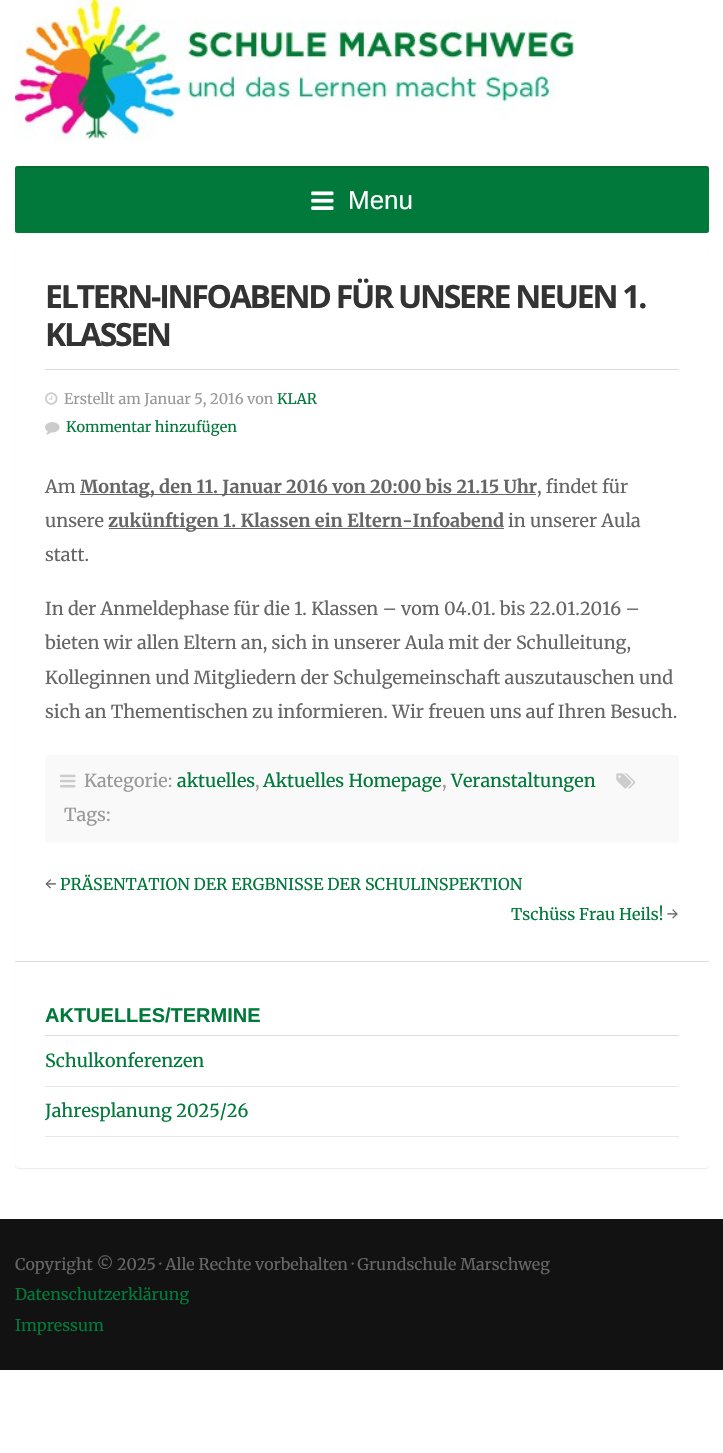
void draw(SkCanvas* canvas) {
    SkPaint paint;
    paint.setAntiAlias(true);
    auto spacedText = [&](const char* s, float x, float y, const SkFont& font, const SkPaint& ink, float letter, float word) {
        std::vector<SkGlyphID> glyphs(font.countText(s, strlen(s), SkTextEncoding::kUTF8));
        std::vector<float> xs(glyphs.size());
        font.textToGlyphs(s, strlen(s), SkTextEncoding::kUTF8, glyphs);
        font.getXPos(glyphs, xs, x);
        float extra = 0;
        for (size_t i = 0; i < glyphs.size(); i++) {
            xs[i] += extra;
            extra += letter + word * (glyphs[i] == font.unicharToGlyph(' '));
        }
        canvas->drawTextBlob(SkTextBlob::MakeFromPosHGlyphs(glyphs, xs, y, font), 0, 0, ink);
    };
    canvas->clear(0xFFFFFFFF);
    canvas->drawImageRect(SkImages::DeferredFromEncodedData(SkData::MakeFromFileName("img1.png")), SkRect::MakeXYWH(15, 0, 561, 141), SkSamplingOptions());
    paint.setColor(0xFF01793B);
    canvas->drawRoundRect(SkRect::MakeXYWH(15, 166, 694, 67), 2.5f, 2.5f, paint);
    paint.setColor(0x1A000000);
    canvas->drawPath(SkPathBuilder().moveTo(18, 168).lineTo(706, 168).cubicTo(708, 168, 709, 169, 709, 170).lineTo(709, 168).cubicTo(709, 167, 708, 166, 706, 166).lineTo(18, 166).cubicTo(16, 166, 15, 167, 15, 168).lineTo(15, 170).cubicTo(15, 169, 16, 168, 18, 168).close().detach(), paint);
    canvas->drawImageRect(SkImages::DeferredFromEncodedData(SkData::MakeFromFileName("img2.png")), SkRect::MakeXYWH(311, 191, 23, 19), SkSamplingOptions());
    SkFont font1(fontMgr->matchFamilyStyle("Liberation Sans", SkFontStyle::Normal()), 26);
    font1.setSubpixel(true);
    paint.setColor(0xFFFFFFFF);
    canvas->drawString("Menu", 348, 209, font1, paint);
    paint.setColor(0x14000000);
    paint.setMaskFilter(SkMaskFilter::MakeBlur(kNormal_SkBlurStyle, 0.5f));
    canvas->drawRoundRect(SkRect::MakeXYWH(15, 249, 694, 920), 4, 4, paint);
    paint.setMaskFilter(nullptr);
    paint.setColor(0xFFFFFFFF);
    canvas->drawRoundRect(SkRect::MakeXYWH(15, 248, 694, 920), 4, 4, paint);
    SkFont font2(fontMgr->matchFamilyStyle("Open Sans", SkFontStyle::Bold()), 32);
    font2.setSubpixel(true);
    paint.setColor(0xFF333333);
    spacedText("ELTERN-INFOABEND FÜR UNSERE NEUEN 1.", 45, 308, font2, paint, -2.25f, 0);
    spacedText("KLASSEN", 45, 346, font2, paint, -2.25f, 0);
    paint.setColor(0xFFDDDDDD);
    canvas->drawRect(SkRect::MakeXYWH(45, 369, 634, 1), paint);
    canvas->drawImageRect(SkImages::DeferredFromEncodedData(SkData::MakeFromFileName("img3.png")), SkRect::MakeXYWH(45, 392, 13, 13), SkSamplingOptions());
    SkFont font3(fontMgr->matchFamilyStyle("Merriweather", SkFontStyle::Normal()), 14.6f);
    font3.setSubpixel(true);
    paint.setColor(0xFF999999);
    canvas->drawString("Erstellt am Januar 5, 2016 von", 64, 404, font3, paint);
    paint.setColor(0xFF01793B);
    canvas->drawString("KLAR", 277, 404, font3, paint);
    canvas->drawImageRect(SkImages::DeferredFromEncodedData(SkData::MakeFromFileName("img4.png")), SkRect::MakeXYWH(45, 422, 15, 13), SkSamplingOptions());
    canvas->drawString("Kommentar hinzufügen", 66, 432, font3, paint);
    SkFont font4(fontMgr->matchFamilyStyle("Merriweather", SkFontStyle::Normal()), 18);
    font4.setSubpixel(true);
    paint.setColor(0xFF666666);
    canvas->drawString("Am", 45, 493, font4, paint);
    canvas->drawRect(SkRect::MakeXYWH(80, 494, 456, 1), paint);
    SkFont font5(fontMgr->matchFamilyStyle("Merriweather", SkFontStyle::Bold()), 18);
    font5.setSubpixel(true);
    canvas->drawString("Montag, den 11. Januar 2016 von 20:00 bis 21.15 Uhr", 80, 493, font5, paint);
    canvas->drawString(", findet für", 537, 493, font4, paint);
    canvas->drawString("unsere", 45, 527, font4, paint);
    canvas->drawRect(SkRect::MakeXYWH(109, 528, 395, 1), paint);
    canvas->drawString("zukünftigen 1. Klassen ein Eltern-Infoabend", 108, 527, font5, paint);
    canvas->drawString("in unserer Aula", 508, 527, font4, paint);
    canvas->drawString("statt.", 45, 561, font4, paint);
    canvas->drawString("In der Anmeldephase für die 1. Klassen – vom 04.01. bis 22.01.2016 –", 45, 615, font4, paint);
    canvas->drawString("bieten wir allen Eltern an, sich in unserer Aula mit der Schulleitung,", 45, 649, font4, paint);
    canvas->drawString("Kolleginnen und Mitgliedern der Schulgemeinschaft auszutauschen und", 45, 684, font4, paint);
    canvas->drawString("sich an Thementischen zu informieren. Wir freuen uns auf Ihren Besuch.", 45, 718, font4, paint);
    paint.setColor(0xFFF9F9F9);
    canvas->drawRoundRect(SkRect::MakeXYWH(45, 755, 634, 88), 4, 4, paint);
    canvas->drawImageRect(SkImages::DeferredFromEncodedData(SkData::MakeFromFileName("img5.png")), SkRect::MakeXYWH(60, 774, 16, 14), SkSamplingOptions());
    paint.setColor(0xFF999999);
    canvas->drawString("Kategorie:", 84, 787, font4, paint);
    paint.setColor(0xFF01793B);
    canvas->drawString("aktuelles", 177, 787, font4, paint);
    paint.setColor(0xFF999999);
    canvas->drawString(",", 255, 787, font4, paint);
    paint.setColor(0xFF01793B);
    canvas->drawString("Aktuelles Homepage", 263, 787, font4, paint);
    paint.setColor(0xFF999999);
    canvas->drawString(",", 442, 787, font4, paint);
    paint.setColor(0xFF01793B);
    canvas->drawString("Veranstaltungen", 451, 787, font4, paint);
    canvas->drawImageRect(SkImages::DeferredFromEncodedData(SkData::MakeFromFileName("img6.png")), SkRect::MakeXYWH(616, 773, 20, 16), SkSamplingOptions());
    paint.setColor(0xFF999999);
    canvas->drawString("Tags:", 64, 821, font4, paint);
    SkFont font6(fontMgr->matchFamilyStyle("Merriweather", SkFontStyle::Normal()), 16.2f);
    font6.setSubpixel(true);
    paint.setColor(0xFF666666);
    canvas->drawString("←", 45, 890, font6, paint);
    paint.setColor(0xFF01793B);
    canvas->drawString("PRÄSENTATION DER ERGBNISSE DER SCHULINSPEKTION", 60, 890, font6, paint);
    canvas->drawString("Tschüss Frau Heils!", 511, 920, font6, paint);
    paint.setColor(0xFF666666);
    canvas->drawString("→", 667, 920, font6, paint);
    paint.setColor(0xFFDDDDDD);
    canvas->drawRect(SkRect::MakeXYWH(15, 961, 694, 1), paint);
    canvas->drawRect(SkRect::MakeXYWH(45, 1035, 634, 1), paint);
    SkFont font7(fontMgr->matchFamilyStyle("Liberation Sans", SkFontStyle::Bold()), 20);
    font7.setSubpixel(true);
    paint.setColor(0xFF01793B);
    canvas->drawString("AKTUELLES/TERMINE", 45, 1022, font7, paint);
    canvas->drawString("Schulkonferenzen", 45, 1067, font4, paint);
    paint.setColor(0xFFE8E8E8);
    canvas->drawRect(SkRect::MakeXYWH(45, 1086, 634, 1), paint);
    canvas->drawRect(SkRect::MakeXYWH(45, 1136, 634, 1), paint);
    paint.setColor(0xFF01793B);
    canvas->drawString("Jahresplanung 2025/26", 45, 1117, font4, paint);
    paint.setColor(0xFF121212);
    canvas->drawRect(SkRect::MakeXYWH(0, 1219, 723, 151), paint);
    SkFont font8(fontMgr->matchFamilyStyle("Merriweather", SkFontStyle::Normal()), 16);
    font8.setSubpixel(true);
    paint.setColor(0xFF666666);
    canvas->drawString("Copyright © 2025 · Alle Rechte vorbehalten · Grundschule Marschweg", 15, 1270, font8, paint);
    paint.setColor(0xFF01793B);
    canvas->drawString("Datenschutzerklärung", 15, 1300, font8, paint);
    canvas->drawString("Impressum", 15, 1331, font8, paint);
}
